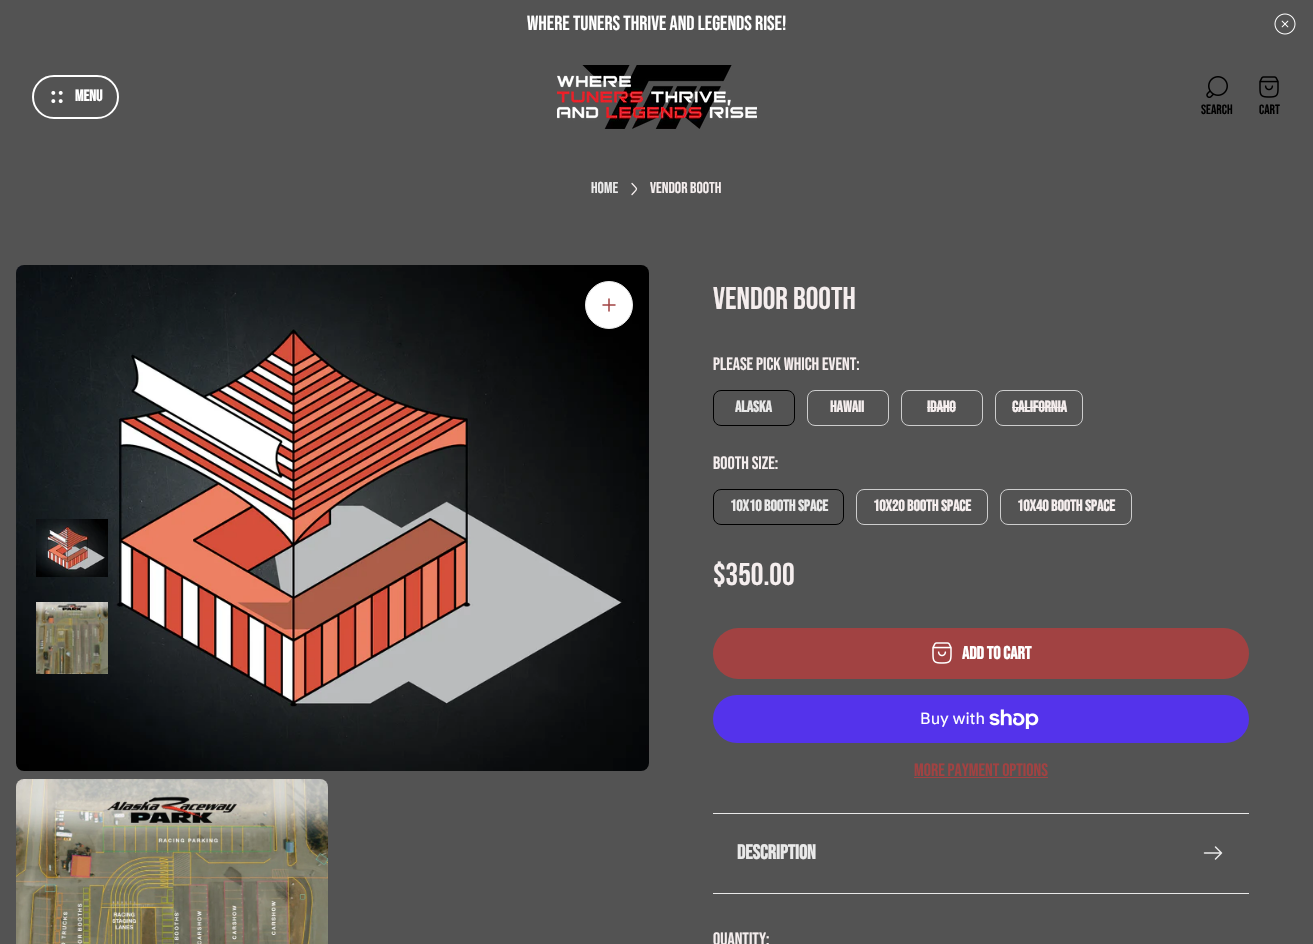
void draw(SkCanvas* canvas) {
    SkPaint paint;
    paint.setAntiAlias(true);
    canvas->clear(0xFF535353);
    SkFont font1(fontMgr->matchFamilyStyle("Bebas Neue", SkFontStyle::Normal()), 20.25f);
    font1.setSubpixel(true);
    paint.setColor(0xFFFFFFFF);
    canvas->drawString("Where Tuners thrive and Legends Rise!", 527, 30, font1, paint);
    canvas->drawImageRect(SkImages::DeferredFromEncodedData(SkData::MakeFromFileName("img1.png")), SkRect::MakeXYWH(1274, 13, 22, 22), SkSamplingOptions());
    paint.setStyle(SkPaint::kStroke_Style);
    paint.setStrokeWidth(2);
    canvas->drawRoundRect(SkRect::MakeXYWH(33, 76, 85, 42), 21, 21, paint);
    canvas->drawImageRect(SkImages::DeferredFromEncodedData(SkData::MakeFromFileName("img2.png")), SkRect::MakeXYWH(51, 90, 12, 14), SkSamplingOptions());
    SkFont font2(fontMgr->matchFamilyStyle("Bebas Neue", SkFontStyle::Bold()), 15.75f);
    font2.setSubpixel(true);
    paint.setStyle(SkPaint::kFill_Style);
    canvas->drawString("Menu", 75, 101, font2, paint);
    canvas->drawImageRect(SkImages::DeferredFromEncodedData(SkData::MakeFromFileName("img3.png")), SkRect::MakeXYWH(557, 65, 200, 64), SkSamplingOptions());
    canvas->drawImageRect(SkImages::DeferredFromEncodedData(SkData::MakeFromFileName("img4.png")), SkRect::MakeXYWH(1206, 76, 22, 22), SkSamplingOptions());
    SkFont font3(fontMgr->matchFamilyStyle("Bebas Neue", SkFontStyle::Normal()), 13.5f);
    font3.setSubpixel(true);
    paint.setColor(0xFF000000);
    canvas->drawString("Search", 1201, 114, font3, paint);
    canvas->drawImageRect(SkImages::DeferredFromEncodedData(SkData::MakeFromFileName("img5.png")), SkRect::MakeXYWH(1259, 76, 20, 22), SkSamplingOptions());
    canvas->drawString("Cart", 1259, 114, font3, paint);
    SkFont font4(fontMgr->matchFamilyStyle("Bebas Neue", SkFontStyle::Normal()), 15.75f);
    font4.setSubpixel(true);
    paint.setColor(0xFFE9E9E9);
    canvas->drawString("Home", 591, 193, font4, paint);
    paint.setStyle(SkPaint::kStroke_Style);
    paint.setStrokeWidth(1.3f);
    paint.setStrokeCap(SkPaint::kRound_Cap);
    paint.setStrokeJoin(SkPaint::kRound_Join);
    paint.setColor(0xFFF5EEEE);
    canvas->drawPath(SkPathBuilder().moveTo(632, 194.5f).cubicTo(638, 188, 638, 190, 632, 183.5f).detach(), paint);
    paint.setStyle(SkPaint::kFill_Style);
    canvas->drawString("Vendor Booth", 650, 193, font4, paint);
    canvas->drawImageRect(SkImages::DeferredFromEncodedData(SkData::MakeFromFileName("img6.png")), SkRect::MakeXYWH(16, 265, 633, 506), SkSamplingOptions());
    canvas->drawImageRect(SkImages::DeferredFromEncodedData(SkData::MakeFromFileName("img7.png")), SkRect::MakeXYWH(16, 779, 312, 165), SkSamplingOptions());
    paint.setColor(0xFFFFFFFF);
    canvas->drawCircle(609, 305, 23.5f, paint);
    paint.setStyle(SkPaint::kStroke_Style);
    paint.setStrokeWidth(1);
    paint.setStrokeCap(SkPaint::kButt_Cap);
    paint.setStrokeJoin(SkPaint::kMiter_Join);
    paint.setColor(0xFFE9E9E9);
    canvas->drawCircle(609, 305, 23.5f, paint);
    paint.setStrokeWidth(1.5f);
    paint.setStrokeCap(SkPaint::kRound_Cap);
    paint.setStrokeJoin(SkPaint::kRound_Join);
    paint.setColor(0xFFA14242);
    canvas->drawPath(SkPathBuilder().moveTo(603, 305).lineTo(615, 305).moveTo(609, 311).lineTo(609, 299).detach(), paint);
    canvas->drawImageRect(SkImages::DeferredFromEncodedData(SkData::MakeFromFileName("img8.png")), SkRect::MakeXYWH(36, 519, 72, 58), SkSamplingOptions());
    canvas->drawImageRect(SkImages::DeferredFromEncodedData(SkData::MakeFromFileName("img9.png")), SkRect::MakeXYWH(36, 602, 72, 72), SkSamplingOptions());
    SkFont font5(fontMgr->matchFamilyStyle("Bebas Neue", SkFontStyle::Normal()), 31.5f);
    font5.setSubpixel(true);
    paint.setStyle(SkPaint::kFill_Style);
    paint.setColor(0xFFF5EEEE);
    canvas->drawString("Vendor Booth", 713, 309, font5, paint);
    SkFont font6(fontMgr->matchFamilyStyle("Bebas Neue", SkFontStyle::Normal()), 18);
    font6.setSubpixel(true);
    canvas->drawString("Please pick which event:", 713, 370, font6, paint);
    paint.setStyle(SkPaint::kStroke_Style);
    paint.setStrokeWidth(1);
    paint.setStrokeCap(SkPaint::kButt_Cap);
    paint.setStrokeJoin(SkPaint::kMiter_Join);
    paint.setColor(0xFF000000);
    canvas->drawRoundRect(SkRect::MakeXYWH(713.5f, 390.5f, 81, 35), 7.5f, 7.5f, paint);
    paint.setStyle(SkPaint::kFill_Style);
    paint.setColor(0xFFE9E9E9);
    canvas->drawString("Alaska", 735, 412, font2, paint);
    paint.setStyle(SkPaint::kStroke_Style);
    paint.setColor(0xFFCDCDCD);
    canvas->drawRoundRect(SkRect::MakeXYWH(807.5f, 390.5f, 81, 35), 7.5f, 7.5f, paint);
    paint.setStyle(SkPaint::kFill_Style);
    paint.setColor(0xFFF5EEEE);
    canvas->drawString("Hawaii", 830, 412, font2, paint);
    paint.setStyle(SkPaint::kStroke_Style);
    paint.setColor(0xFFCDCDCD);
    canvas->drawRoundRect(SkRect::MakeXYWH(901.5f, 390.5f, 81, 35), 7.5f, 7.5f, paint);
    paint.setStyle(SkPaint::kFill_Style);
    paint.setColor(0xFFF5EEEE);
    canvas->drawString("Idaho", 927, 412, font2, paint);
    canvas->drawRect(SkRect::MakeXYWH(927, 407, 29, 1), paint);
    paint.setStyle(SkPaint::kStroke_Style);
    paint.setColor(0xFFCDCDCD);
    canvas->drawRoundRect(SkRect::MakeXYWH(995.5f, 390.5f, 87, 35), 7.5f, 7.5f, paint);
    paint.setStyle(SkPaint::kFill_Style);
    paint.setColor(0xFFF5EEEE);
    canvas->drawString("California", 1012, 412, font2, paint);
    canvas->drawRect(SkRect::MakeXYWH(1012, 407, 54, 1), paint);
    canvas->drawString("BOOTH SIZE:", 713, 469, font6, paint);
    paint.setStyle(SkPaint::kStroke_Style);
    paint.setColor(0xFF000000);
    canvas->drawRoundRect(SkRect::MakeXYWH(713.5f, 489.5f, 130, 35), 7.5f, 7.5f, paint);
    paint.setStyle(SkPaint::kFill_Style);
    paint.setColor(0xFFE9E9E9);
    canvas->drawString("10x10 BOOTH SPACE", 730, 511, font2, paint);
    paint.setStyle(SkPaint::kStroke_Style);
    paint.setColor(0xFFCDCDCD);
    canvas->drawRoundRect(SkRect::MakeXYWH(856.5f, 489.5f, 131, 35), 7.5f, 7.5f, paint);
    paint.setStyle(SkPaint::kFill_Style);
    paint.setColor(0xFFF5EEEE);
    canvas->drawString("10x20 BOOTH SPACE", 873, 511, font2, paint);
    paint.setStyle(SkPaint::kStroke_Style);
    paint.setColor(0xFFCDCDCD);
    canvas->drawRoundRect(SkRect::MakeXYWH(1000.5f, 489.5f, 131, 35), 7.5f, 7.5f, paint);
    paint.setStyle(SkPaint::kFill_Style);
    paint.setColor(0xFFF5EEEE);
    canvas->drawString("10x40 BOOTH SPACE", 1017, 511, font2, paint);
    canvas->drawString("$350.00", 713, 585, font5, paint);
    paint.setColor(0xFFA14242);
    canvas->drawRoundRect(SkRect::MakeXYWH(713, 628, 536, 51), 25.5f, 25.5f, paint);
    canvas->drawImageRect(SkImages::DeferredFromEncodedData(SkData::MakeFromFileName("img10.png")), SkRect::MakeXYWH(932, 642, 20, 22), SkSamplingOptions());
    SkFont font7(fontMgr->matchFamilyStyle("Bebas Neue", SkFontStyle::Bold()), 18);
    font7.setSubpixel(true);
    paint.setColor(0xFFFFFFFF);
    canvas->drawString("Add to cart", 962, 659, font7, paint);
    paint.setColor(0xFF5433EB);
    canvas->drawRoundRect(SkRect::MakeXYWH(713, 695, 536, 48), 24, 24, paint);
    SkFont font8(fontMgr->matchFamilyStyle("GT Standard", SkFontStyle::Normal()), 16);
    font8.setSubpixel(true);
    paint.setColor(0xFFFFFFFF);
    canvas->drawString("Buy with", 920, 724, font8, paint);
    canvas->drawImageRect(SkImages::DeferredFromEncodedData(SkData::MakeFromFileName("img11.png")), SkRect::MakeXYWH(989, 709, 50, 20), SkSamplingOptions());
    paint.setColor(0xFFA14242);
    canvas->drawString("More payment options", 914, 776, font6, paint);
    canvas->drawRect(SkRect::MakeXYWH(914, 777, 134, 1), paint);
    paint.setColor(0xFFE9E9E9);
    canvas->drawRect(SkRect::MakeXYWH(713, 813, 536, 1), paint);
    canvas->drawRect(SkRect::MakeXYWH(713, 893, 536, 1), paint);
    SkFont font9(fontMgr->matchFamilyStyle("Bebas Neue", SkFontStyle::Bold()), 20.25f);
    font9.setSubpixel(true);
    canvas->drawString("Description", 737, 859, font9, paint);
    paint.setStyle(SkPaint::kStroke_Style);
    paint.setStrokeWidth(1.5f);
    paint.setStrokeCap(SkPaint::kRound_Cap);
    paint.setStrokeJoin(SkPaint::kRound_Join);
    canvas->drawPath(SkPathBuilder().moveTo(1215.5f, 847).lineTo(1221.5f, 853).lineTo(1215.5f, 859).moveTo(1204.5f, 853).lineTo(1221.5f, 853).detach(), paint);
    paint.setStyle(SkPaint::kFill_Style);
    paint.setColor(0xFFF5EEEE);
    canvas->drawString("Quantity:", 713, 945, font6, paint);
}
